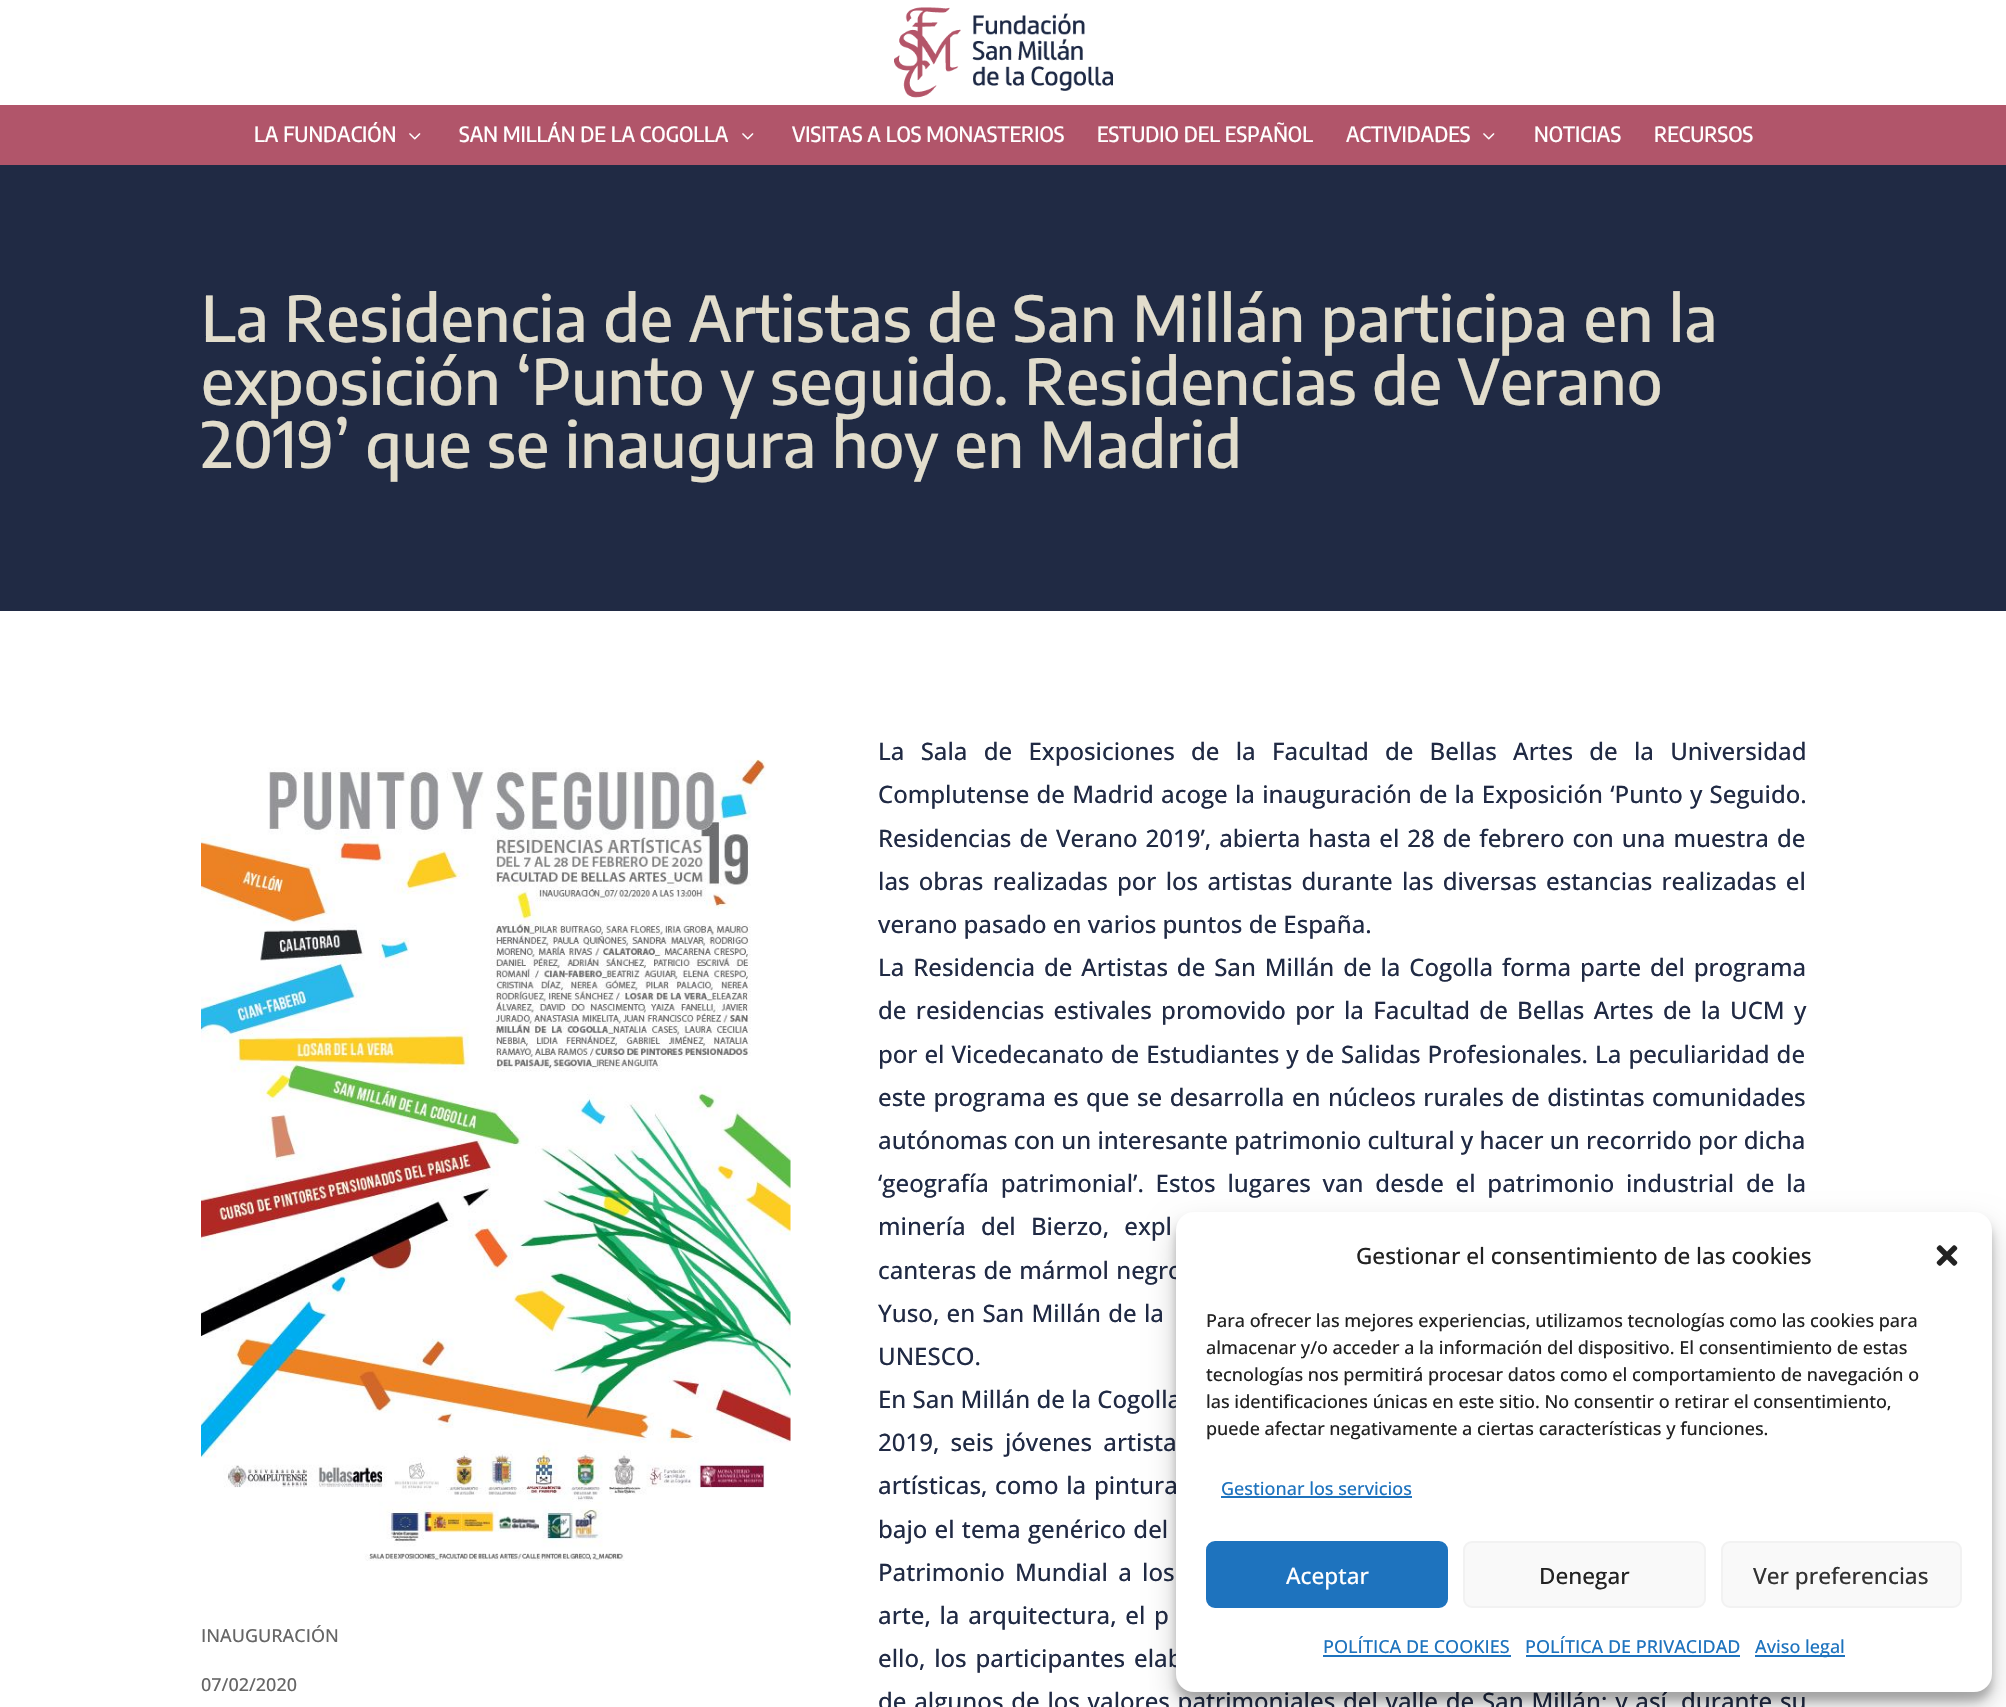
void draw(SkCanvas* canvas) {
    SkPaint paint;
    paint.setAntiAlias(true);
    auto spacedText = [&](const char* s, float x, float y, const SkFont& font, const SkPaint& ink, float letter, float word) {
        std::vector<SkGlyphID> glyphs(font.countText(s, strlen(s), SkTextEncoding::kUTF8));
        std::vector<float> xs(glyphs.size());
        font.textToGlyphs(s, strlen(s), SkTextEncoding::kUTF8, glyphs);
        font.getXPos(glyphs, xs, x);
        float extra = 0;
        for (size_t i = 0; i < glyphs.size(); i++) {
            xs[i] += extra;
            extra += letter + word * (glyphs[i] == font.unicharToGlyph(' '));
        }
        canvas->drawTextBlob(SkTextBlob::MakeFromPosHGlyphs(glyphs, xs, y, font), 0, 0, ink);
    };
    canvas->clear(0xFFFFFFFF);
    canvas->drawImageRect(SkImages::DeferredFromEncodedData(SkData::MakeFromFileName("img1.png")), SkRect::MakeXYWH(894, 7, 219, 91), SkSamplingOptions());
    paint.setColor(0xFFB1556A);
    canvas->drawRect(SkRect::MakeXYWH(0, 105, 2006, 60), paint);
    SkFont font1(fontMgr->matchFamilyStyle("Encode Sans Semi Condensed", SkFontStyle(500, SkFontStyle::kNormal_Width, SkFontStyle::kUpright_Slant)), 21);
    font1.setSubpixel(true);
    paint.setColor(0xFFFFFFFF);
    canvas->drawString("LA FUNDACIÓN", 254, 142, font1, paint);
    canvas->drawImageRect(SkImages::DeferredFromEncodedData(SkData::MakeFromFileName("img2.png")), SkRect::MakeXYWH(409, 133, 12, 7), SkSamplingOptions());
    canvas->drawString("SAN MILLÁN DE LA COGOLLA", 459, 142, font1, paint);
    canvas->drawImageRect(SkImages::DeferredFromEncodedData(SkData::MakeFromFileName("img2.png")), SkRect::MakeXYWH(742, 133, 12, 7), SkSamplingOptions());
    canvas->drawString("VISITAS A LOS MONASTERIOS", 792, 142, font1, paint);
    canvas->drawString("ESTUDIO DEL ESPAÑOL", 1097, 142, font1, paint);
    canvas->drawString("ACTIVIDADES", 1346, 142, font1, paint);
    canvas->drawImageRect(SkImages::DeferredFromEncodedData(SkData::MakeFromFileName("img2.png")), SkRect::MakeXYWH(1483, 133, 12, 7), SkSamplingOptions());
    canvas->drawString("NOTICIAS", 1534, 142, font1, paint);
    canvas->drawString("RECURSOS", 1654, 142, font1, paint);
    paint.setColor(0xFF202A44);
    canvas->drawRect(SkRect::MakeXYWH(0, 165, 2006, 446), paint);
    SkFont font2(fontMgr->matchFamilyStyle("Encode Sans Condensed", SkFontStyle(100, SkFontStyle::kNormal_Width, SkFontStyle::kUpright_Slant)), 63);
    font2.setSubpixel(true);
    paint.setColor(0xFFE2DDCC);
    canvas->drawString("La Residencia de Artistas de San Millán participa en la", 201, 342, font2, paint);
    canvas->drawString("exposición ‘Punto y seguido. Residencias de Verano", 201, 405, font2, paint);
    canvas->drawString("2019’ que se inaugura hoy en Madrid", 201, 468, font2, paint);
    canvas->drawImageRect(SkImages::DeferredFromEncodedData(SkData::MakeFromFileName("img3.png")), SkRect::MakeXYWH(201, 759, 590, 802), SkSamplingOptions());
    SkFont font3(fontMgr->matchFamilyStyle("Open Sans", SkFontStyle(500, SkFontStyle::kNormal_Width, SkFontStyle::kUpright_Slant)), 18);
    font3.setSubpixel(true);
    paint.setColor(0xFF666666);
    canvas->drawString("INAUGURACIÓN", 201, 1642, font3, paint);
    canvas->drawString("07/02/2020", 201, 1691, font3, paint);
    SkFont font4(fontMgr->matchFamilyStyle("Open Sans", SkFontStyle(500, SkFontStyle::kNormal_Width, SkFontStyle::kUpright_Slant)), 24);
    font4.setSubpixel(true);
    paint.setColor(0xFF202A44);
    spacedText("La Sala de Exposiciones de la Facultad de Bellas Artes de la Universidad", 878, 760, font4, paint, 0, 10);
    spacedText("Complutense de Madrid acoge la inauguración de la Exposición ‘Punto y Seguido.", 878, 803, font4, paint, 0, 1);
    spacedText("Residencias de Verano 2019’, abierta hasta el 28 de febrero con una muestra de", 878, 847, font4, paint, 0, 1.8f);
    spacedText("las obras realizadas por los artistas durante las diversas estancias realizadas el", 878, 890, font4, paint, 0, 3);
    canvas->drawString("verano pasado en varios puntos de España.", 878, 933, font4, paint);
    spacedText("La Residencia de Artistas de San Millán de la Cogolla forma parte del programa", 878, 976, font4, paint, 0, 2.6f);
    spacedText("de residencias estivales promovido por la Facultad de Bellas Artes de la UCM y", 878, 1019, font4, paint, 0, 3.1f);
    spacedText("por el Vicedecanato de Estudiantes y de Salidas Profesionales. La peculiaridad de", 878, 1063, font4, paint, 0, 0.75f);
    spacedText("este programa es que se desarrolla en núcleos rurales de distintas comunidades", 878, 1106, font4, paint, 0, 1.25f);
    canvas->drawString("autónomas con un interesante patrimonio cultural y hacer un recorrido por dicha", 878, 1149, font4, paint);
    spacedText("‘geografía patrimonial’. Estos lugares van desde el patrimonio industrial de la", 878, 1192, font4, paint, 0, 5.5f);
    spacedText("minería del Bierzo, expl", 878, 1235, font4, paint, 0, 9);
    spacedText("canteras de mármol negro", 878, 1279, font4, paint, 0, 1);
    spacedText("Yuso, en San Millán de la", 878, 1322, font4, paint, 0, 1);
    canvas->drawString("UNESCO.", 878, 1365, font4, paint);
    canvas->drawString("En San Millán de la Cogolla", 878, 1408, font4, paint);
    spacedText("2019, seis jóvenes artista", 878, 1451, font4, paint, 0, 5);
    spacedText("artísticas, como la pintura", 878, 1494, font4, paint, 0, 1.5f);
    spacedText("bajo el tema genérico del", 878, 1538, font4, paint, 0, 1);
    spacedText("Patrimonio Mundial a los", 878, 1581, font4, paint, 0, 4);
    spacedText("arte, la arquitectura, el p", 878, 1624, font4, paint, 0, 2.5f);
    spacedText("ello, los participantes elab", 878, 1667, font4, paint, 0, 2.6f);
    spacedText("de algunos de los valores patrimoniales del valle de San Millán; y así, durante su", 878, 1710, font4, paint, 0, 1.5f);
    paint.setColor(0x3B000000);
    paint.setMaskFilter(SkMaskFilter::MakeBlur(kNormal_SkBlurStyle, 4.5f));
    canvas->drawRoundRect(SkRect::MakeXYWH(1176, 1221, 816, 480), 18, 18, paint);
    paint.setMaskFilter(nullptr);
    paint.setColor(0x30000000);
    paint.setMaskFilter(SkMaskFilter::MakeBlur(kNormal_SkBlurStyle, 15));
    canvas->drawRoundRect(SkRect::MakeXYWH(1176, 1227, 816, 480), 18, 18, paint);
    paint.setMaskFilter(nullptr);
    paint.setColor(0xFFFFFFFF);
    canvas->drawRoundRect(SkRect::MakeXYWH(1176, 1212, 816, 480), 18, 18, paint);
    SkFont font5(fontMgr->matchFamilyStyle("Open Sans", SkFontStyle(500, SkFontStyle::kNormal_Width, SkFontStyle::kUpright_Slant)), 22.5f);
    font5.setSubpixel(true);
    paint.setColor(0xFF222222);
    canvas->drawString("Gestionar el consentimiento de las cookies", 1356, 1264, font5, paint);
    canvas->drawImageRect(SkImages::DeferredFromEncodedData(SkData::MakeFromFileName("img4.png")), SkRect::MakeXYWH(1936, 1245, 22, 21), SkSamplingOptions());
    canvas->drawString("Para ofrecer las mejores experiencias, utilizamos tecnologías como las cookies para", 1206, 1327, font3, paint);
    canvas->drawString("almacenar y/o acceder a la información del dispositivo. El consentimiento de estas", 1206, 1354, font3, paint);
    canvas->drawString("tecnologías nos permitirá procesar datos como el comportamiento de navegación o", 1206, 1381, font3, paint);
    canvas->drawString("las identificaciones únicas en este sitio. No consentir o retirar el consentimiento,", 1206, 1408, font3, paint);
    canvas->drawString("puede afectar negativamente a ciertas características y funciones.", 1206, 1435, font3, paint);
    paint.setColor(0xFF1E73BE);
    canvas->drawString("Gestionar los servicios", 1221, 1495, font3, paint);
    canvas->drawRect(SkRect::MakeXYWH(1221, 1496, 191, 2), paint);
    canvas->drawRoundRect(SkRect::MakeXYWH(1207, 1542, 240, 65), 8, 8, paint);
    paint.setStyle(SkPaint::kStroke_Style);
    paint.setStrokeWidth(2);
    canvas->drawRoundRect(SkRect::MakeXYWH(1207, 1542, 240, 65), 8, 8, paint);
    paint.setStyle(SkPaint::kFill_Style);
    paint.setColor(0xFFFFFFFF);
    canvas->drawString("Aceptar", 1286, 1584, font5, paint);
    paint.setColor(0xFFF9F9F9);
    canvas->drawRoundRect(SkRect::MakeXYWH(1464, 1542, 241, 65), 8, 8, paint);
    paint.setStyle(SkPaint::kStroke_Style);
    paint.setColor(0xFFF2F2F2);
    canvas->drawRoundRect(SkRect::MakeXYWH(1464, 1542, 241, 65), 8, 8, paint);
    paint.setStyle(SkPaint::kFill_Style);
    paint.setColor(0xFF222222);
    canvas->drawString("Denegar", 1539, 1584, font5, paint);
    paint.setColor(0xFFF9F9F9);
    canvas->drawRoundRect(SkRect::MakeXYWH(1722, 1542, 239, 65), 8, 8, paint);
    paint.setStyle(SkPaint::kStroke_Style);
    paint.setColor(0xFFF2F2F2);
    canvas->drawRoundRect(SkRect::MakeXYWH(1722, 1542, 239, 65), 8, 8, paint);
    paint.setStyle(SkPaint::kFill_Style);
    paint.setColor(0xFF333333);
    canvas->drawString("Ver preferencias", 1753, 1584, font5, paint);
    paint.setColor(0xFF1E73BE);
    canvas->drawString("POLÍTICA DE COOKIES", 1323, 1653, font3, paint);
    canvas->drawRect(SkRect::MakeXYWH(1323, 1655, 188, 2), paint);
    canvas->drawString("POLÍTICA DE PRIVACIDAD", 1525, 1653, font3, paint);
    canvas->drawRect(SkRect::MakeXYWH(1526, 1655, 214, 2), paint);
    canvas->drawRect(SkRect::MakeXYWH(1755, 1655, 90, 2), paint);
    canvas->drawString("Aviso legal", 1755, 1653, font3, paint);
}
